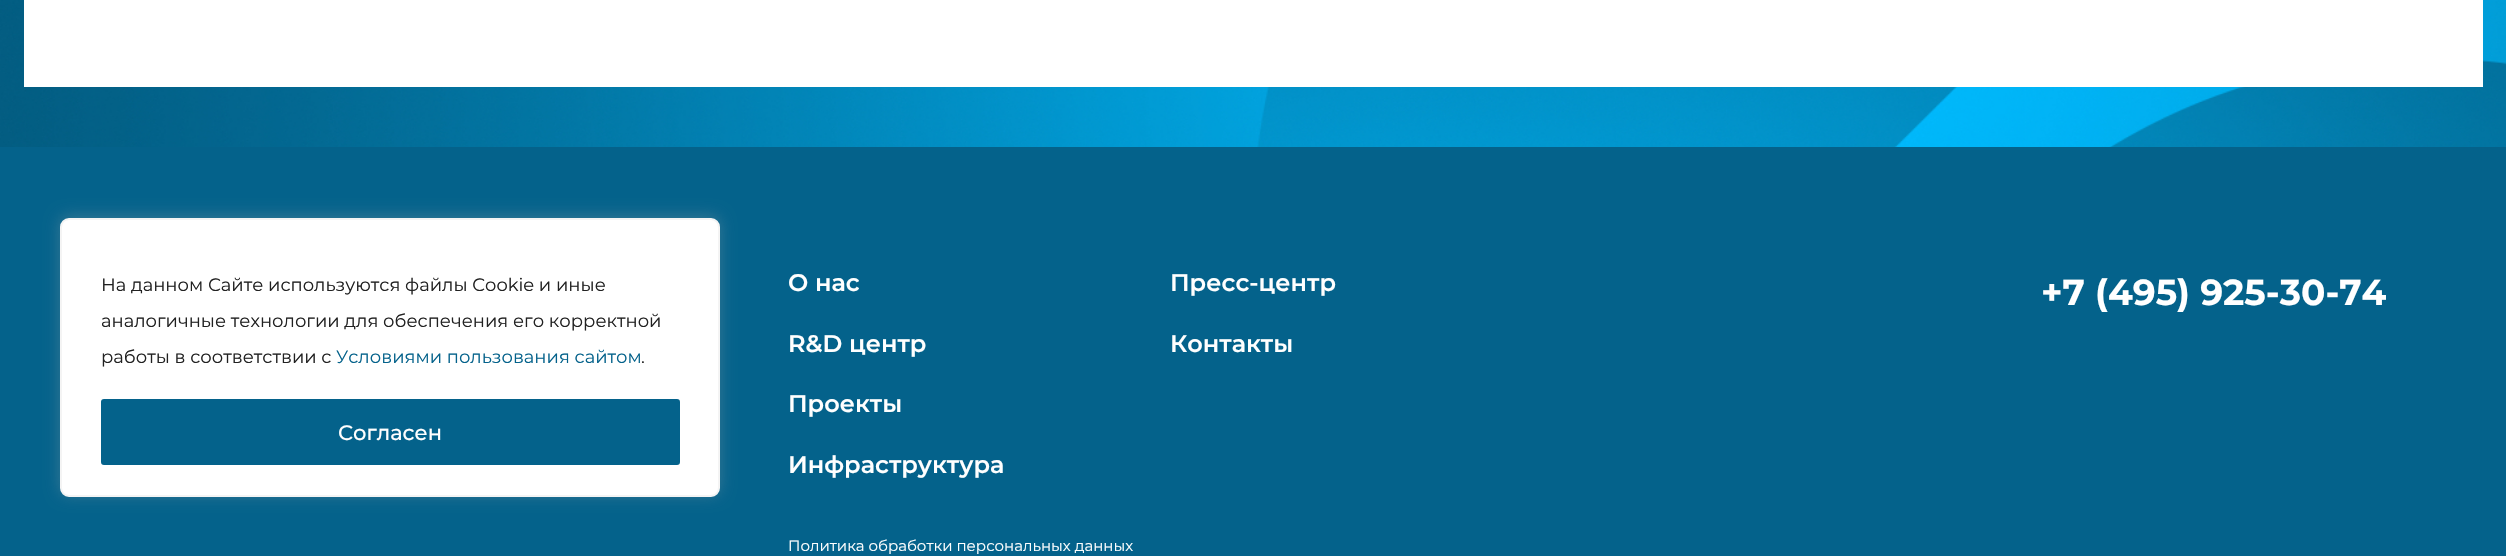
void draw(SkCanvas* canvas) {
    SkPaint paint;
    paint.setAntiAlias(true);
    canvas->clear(0xFFFFFFFF);
    canvas->drawImageRect(SkImages::DeferredFromEncodedData(SkData::MakeFromFileName("img1.png")), SkRect::MakeXYWH(0, 0, 2506, 147), SkSamplingOptions());
    paint.setColor(0xFFFFFFFF);
    canvas->drawRect(SkRect::MakeXYWH(24, 0, 2459, 87), paint);
    paint.setColor(0xFF04628B);
    canvas->drawRect(SkRect::MakeXYWH(0, 147, 2506, 409), paint);
    paint.setColor(0x4DACABAB);
    paint.setMaskFilter(SkMaskFilter::MakeBlur(kNormal_SkBlurStyle, 7.5f));
    canvas->drawRoundRect(SkRect::MakeXYWH(60, 216, 660, 279), 9, 9, paint);
    paint.setMaskFilter(nullptr);
    paint.setColor(0xFFFFFFFF);
    canvas->drawRoundRect(SkRect::MakeXYWH(61, 219, 658, 277), 8, 8, paint);
    paint.setStyle(SkPaint::kStroke_Style);
    paint.setStrokeWidth(2);
    paint.setColor(0xFFF4F4F4);
    canvas->drawRoundRect(SkRect::MakeXYWH(61, 219, 658, 277), 8, 8, paint);
    SkFont font1(fontMgr->matchFamilyStyle("Montserrat", SkFontStyle::Normal()), 18);
    font1.setSubpixel(true);
    paint.setStyle(SkPaint::kFill_Style);
    paint.setColor(0xFF212121);
    canvas->drawString("На данном Сайте используются файлы Cookie и иные", 101, 291, font1, paint);
    canvas->drawString("аналогичные технологии для обеспечения его корректной", 101, 327, font1, paint);
    canvas->drawString("работы в соответствии с", 101, 363, font1, paint);
    paint.setColor(0xFF04628B);
    canvas->drawString("Условиями пользования сайтом", 336, 363, font1, paint);
    paint.setColor(0xFF212121);
    canvas->drawString(".", 641, 363, font1, paint);
    paint.setColor(0xFF04628B);
    canvas->drawRoundRect(SkRect::MakeXYWH(102.5f, 400.5f, 576, 63), 1.5f, 1.5f, paint);
    paint.setStyle(SkPaint::kStroke_Style);
    paint.setStrokeWidth(3);
    canvas->drawRoundRect(SkRect::MakeXYWH(102.5f, 400.5f, 576, 63), 1.5f, 1.5f, paint);
    SkFont font2(fontMgr->matchFamilyStyle("Montserrat", SkFontStyle(500, SkFontStyle::kNormal_Width, SkFontStyle::kUpright_Slant)), 21);
    font2.setSubpixel(true);
    paint.setStyle(SkPaint::kFill_Style);
    paint.setColor(0xFFFFFFFF);
    canvas->drawString("Согласен", 338, 440, font2, paint);
    SkFont font3(fontMgr->matchFamilyStyle("Montserrat", SkFontStyle(600, SkFontStyle::kNormal_Width, SkFontStyle::kUpright_Slant)), 24);
    font3.setSubpixel(true);
    canvas->drawString("О нас", 788, 291, font3, paint);
    canvas->drawString("R&D центр", 788, 352, font3, paint);
    canvas->drawString("Проекты", 788, 412, font3, paint);
    canvas->drawString("Инфраструктура", 788, 473, font3, paint);
    canvas->drawString("Пресс-центр", 1170, 291, font3, paint);
    canvas->drawString("Контакты", 1170, 352, font3, paint);
    SkFont font4(fontMgr->matchFamilyStyle("Montserrat", SkFontStyle::Normal()), 15);
    font4.setSubpixel(true);
    canvas->drawString("Политика обработки персональных данных", 788, 551, font4, paint);
    SkFont font5(fontMgr->matchFamilyStyle("Montserrat", SkFontStyle::Bold()), 36);
    font5.setSubpixel(true);
    canvas->drawString("+7 (495) 925-30-74", 2041, 305, font5, paint);
}
